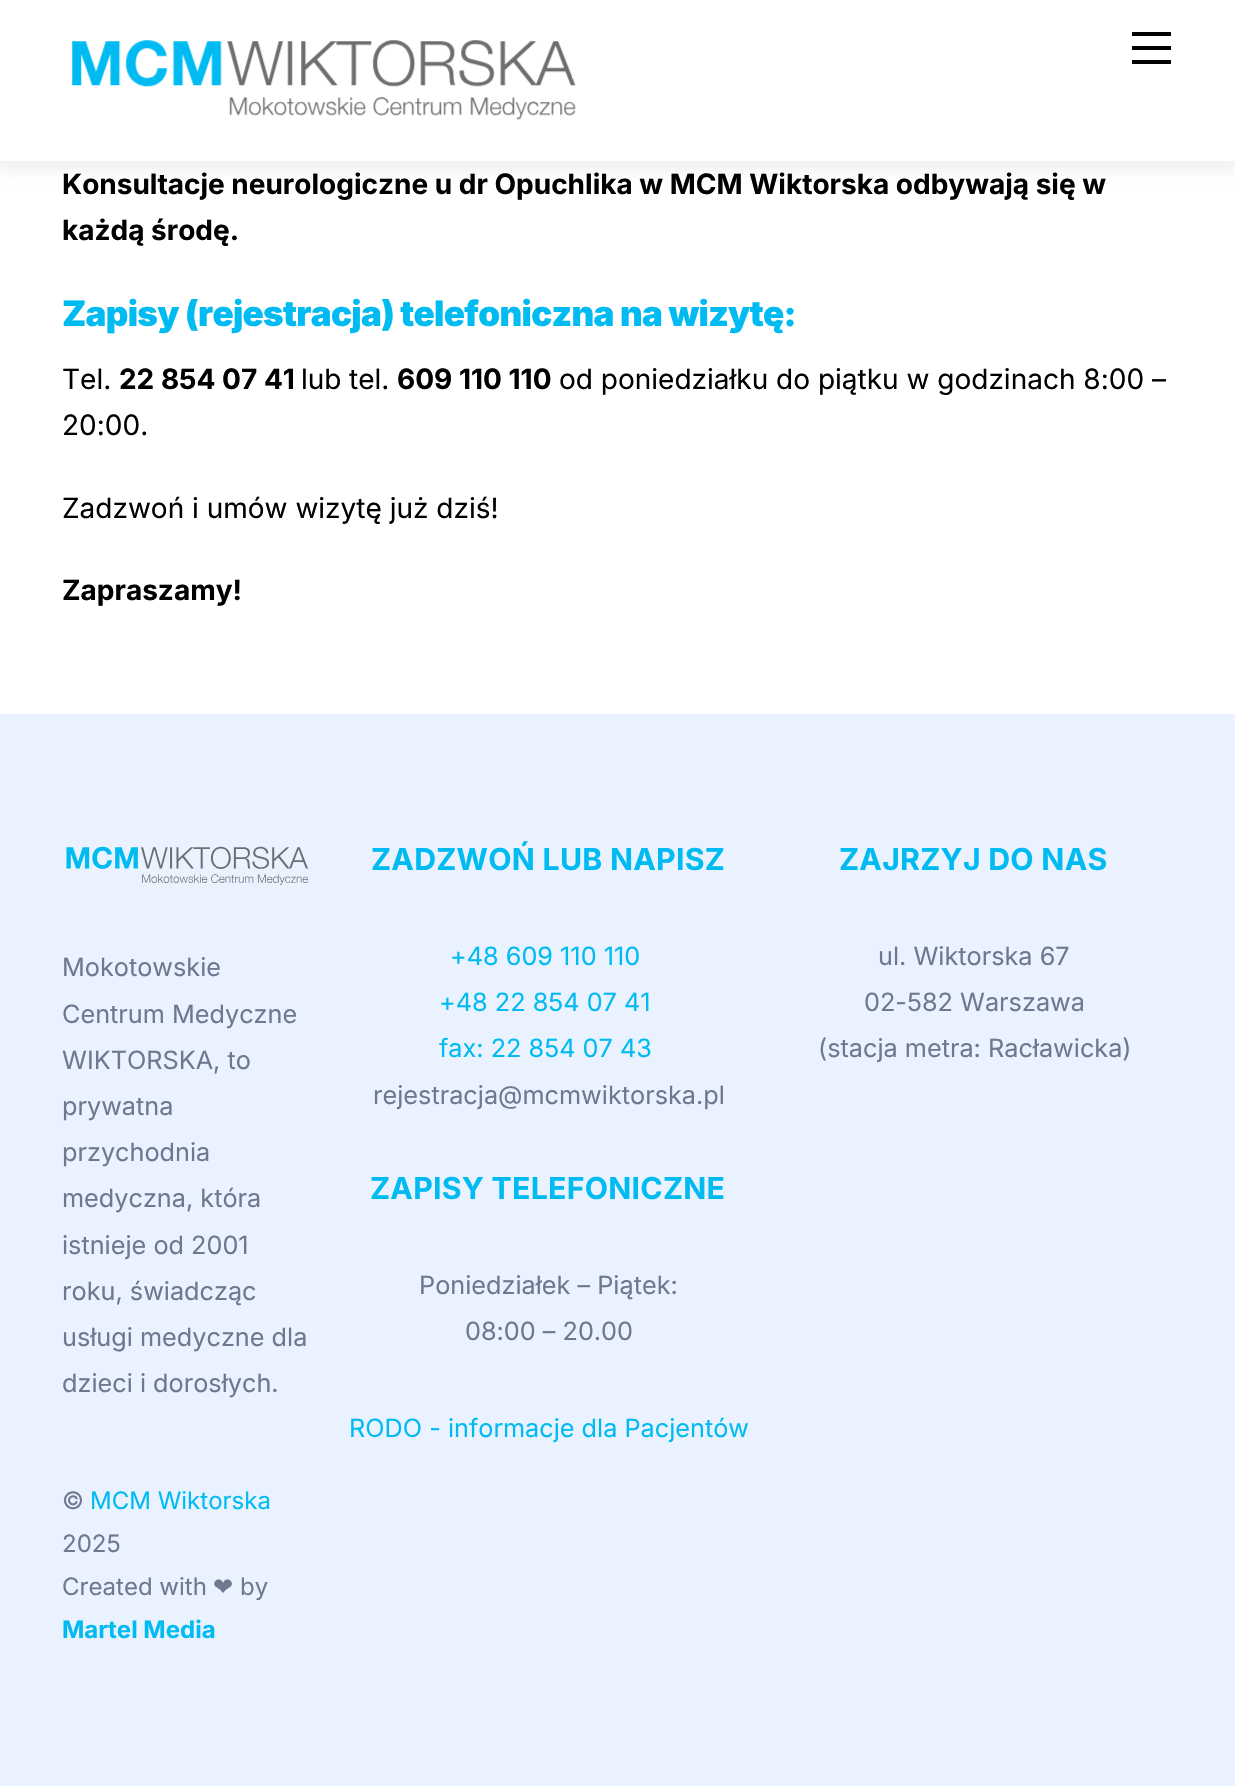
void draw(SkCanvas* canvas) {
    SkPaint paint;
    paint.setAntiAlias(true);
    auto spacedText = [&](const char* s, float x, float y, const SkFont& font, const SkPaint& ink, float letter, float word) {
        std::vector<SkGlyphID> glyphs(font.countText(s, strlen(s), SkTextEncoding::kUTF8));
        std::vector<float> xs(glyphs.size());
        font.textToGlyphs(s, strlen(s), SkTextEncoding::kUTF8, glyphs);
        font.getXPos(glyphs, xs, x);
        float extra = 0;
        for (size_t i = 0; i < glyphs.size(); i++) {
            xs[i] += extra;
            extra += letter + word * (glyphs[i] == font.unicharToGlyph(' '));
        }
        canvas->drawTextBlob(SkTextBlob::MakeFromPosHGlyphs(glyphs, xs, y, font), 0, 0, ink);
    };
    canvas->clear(0xFFFFFFFF);
    paint.setColor(0x0F000000);
    paint.setMaskFilter(SkMaskFilter::MakeBlur(kNormal_SkBlurStyle, 7));
    canvas->drawRect(SkRect::MakeXYWH(-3, 0, 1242, 170), paint);
    paint.setMaskFilter(nullptr);
    paint.setColor(0xFFFFFFFF);
    canvas->drawRect(SkRect::MakeXYWH(0, 0, 1235, 161), paint);
    paint.setColor(0xFFF2F2F2);
    canvas->drawRect(SkRect::MakeXYWH(0, 161, 1235, 2), paint);
    canvas->drawImageRect(SkImages::DeferredFromEncodedData(SkData::MakeFromFileName("img1.png")), SkRect::MakeXYWH(71, 40, 505, 80), SkSamplingOptions());
    paint.setColor(0xFF000000);
    canvas->drawRect(SkRect::MakeXYWH(1132, 60, 39, 4), paint);
    canvas->drawRect(SkRect::MakeXYWH(1132, 32, 39, 4), paint);
    canvas->drawRect(SkRect::MakeXYWH(1132, 46, 39, 4), paint);
    SkFont font1(fontMgr->matchFamilyStyle("Inter", SkFontStyle::Bold()), 28);
    font1.setSubpixel(true);
    canvas->drawString("Konsultacje neurologiczne u dr Opuchlika w MCM Wiktorska odbywają się w", 62, 194, font1, paint);
    canvas->drawString("każdą środę.", 62, 240, font1, paint);
    SkFont font2(fontMgr->matchFamilyStyle("Inter", SkFontStyle(900, SkFontStyle::kNormal_Width, SkFontStyle::kUpright_Slant)), 35);
    font2.setSubpixel(true);
    paint.setColor(0xFF00BBF2);
    spacedText("Zapisy (rejestracja) telefoniczna na wizytę:", 62, 326, font2, paint, -0.7f, 0);
    SkFont font3(fontMgr->matchFamilyStyle("Inter", SkFontStyle::Normal()), 28);
    font3.setSubpixel(true);
    paint.setColor(0xFF000000);
    canvas->drawString("Tel.", 62, 389, font3, paint);
    canvas->drawString("22 854 07 41", 119, 389, font1, paint);
    canvas->drawString("lub", 301, 389, font3, paint);
    canvas->drawString("tel.", 349, 389, font3, paint);
    canvas->drawString("609 110 110", 397, 389, font1, paint);
    canvas->drawString("od poniedziałku do piątku w godzinach 8:00 –", 559, 389, font3, paint);
    canvas->drawString("20:00.", 62, 435, font3, paint);
    canvas->drawString("Zadzwoń i umów wizytę już dziś!", 62, 518, font3, paint);
    canvas->drawString("Zapraszamy!", 62, 600, font1, paint);
    paint.setColor(0xFFEBF2FF);
    canvas->drawRect(SkRect::MakeXYWH(0, 714, 1235, 1072), paint);
    canvas->drawImageRect(SkImages::DeferredFromEncodedData(SkData::MakeFromFileName("img2.png")), SkRect::MakeXYWH(66, 846, 242, 39), SkSamplingOptions());
    SkFont font4(fontMgr->matchFamilyStyle("Inter", SkFontStyle::Normal()), 25.25f);
    font4.setSubpixel(true);
    paint.setColor(0xFF6E7990);
    canvas->drawString("Mokotowskie", 62, 976, font4, paint);
    canvas->drawString("Centrum Medyczne", 62, 1023, font4, paint);
    canvas->drawString("WIKTORSKA, to", 62, 1069, font4, paint);
    canvas->drawString("prywatna", 62, 1115, font4, paint);
    canvas->drawString("przychodnia", 62, 1161, font4, paint);
    canvas->drawString("medyczna, która", 62, 1207, font4, paint);
    canvas->drawString("istnieje od 2001", 62, 1254, font4, paint);
    canvas->drawString("roku, świadcząc", 62, 1300, font4, paint);
    canvas->drawString("usługi medyczne dla", 62, 1346, font4, paint);
    canvas->drawString("dzieci i dorosłych.", 62, 1392, font4, paint);
    SkFont font5(fontMgr->matchFamilyStyle("Inter", SkFontStyle::Normal()), 24);
    font5.setSubpixel(true);
    canvas->drawString("©", 62, 1509, font5, paint);
    paint.setColor(0xFF00BBF2);
    canvas->drawString("MCM Wiktorska", 90, 1509, font5, paint);
    paint.setColor(0xFF6E7990);
    canvas->drawString("2025", 62, 1552, font5, paint);
    canvas->drawString("Created with", 62, 1595, font5, paint);
    SkFont font6(fontMgr->matchFamilyStyle("DejaVu Sans", SkFontStyle::Normal()), 24);
    font6.setSubpixel(true);
    canvas->drawString("❤", 213, 1595, font6, paint);
    canvas->drawString("by", 240, 1595, font5, paint);
    SkFont font7(fontMgr->matchFamilyStyle("Inter", SkFontStyle::Bold()), 24);
    font7.setSubpixel(true);
    paint.setColor(0xFF00BBF2);
    canvas->drawString("Martel Media", 62, 1638, font7, paint);
    SkFont font8(fontMgr->matchFamilyStyle("Inter", SkFontStyle::Bold()), 30.25f);
    font8.setSubpixel(true);
    spacedText("ZADZWOŃ LUB NAPISZ", 371, 870, font8, paint, 0.25f, 0);
    canvas->drawString("+48 609 110 110", 450, 965, font4, paint);
    canvas->drawString("+48 22 854 07 41", 439, 1011, font4, paint);
    canvas->drawString("fax: 22 854 07 43", 439, 1057, font4, paint);
    paint.setColor(0xFF6E7990);
    canvas->drawString("rejestracja@mcmwiktorska.pl", 373, 1104, font4, paint);
    paint.setColor(0xFF00BBF2);
    spacedText("ZAJRZYJ DO NAS", 839, 870, font8, paint, 0.25f, 0);
    paint.setColor(0xFF6E7990);
    canvas->drawString("ul. Wiktorska 67", 878, 965, font4, paint);
    canvas->drawString("02-582 Warszawa", 864, 1011, font4, paint);
    canvas->drawString("(stacja metra: Racławicka)", 818, 1057, font4, paint);
    paint.setColor(0xFF00BBF2);
    spacedText("ZAPISY TELEFONICZNE", 370, 1199, font8, paint, 0.25f, 0);
    paint.setColor(0xFF6E7990);
    canvas->drawString("Poniedziałek – Piątek:", 419, 1294, font4, paint);
    canvas->drawString("08:00 – 20.00", 465, 1340, font4, paint);
    paint.setColor(0xFF00BBF2);
    canvas->drawString("RODO - informacje dla Pacjentów", 349, 1437, font4, paint);
}
